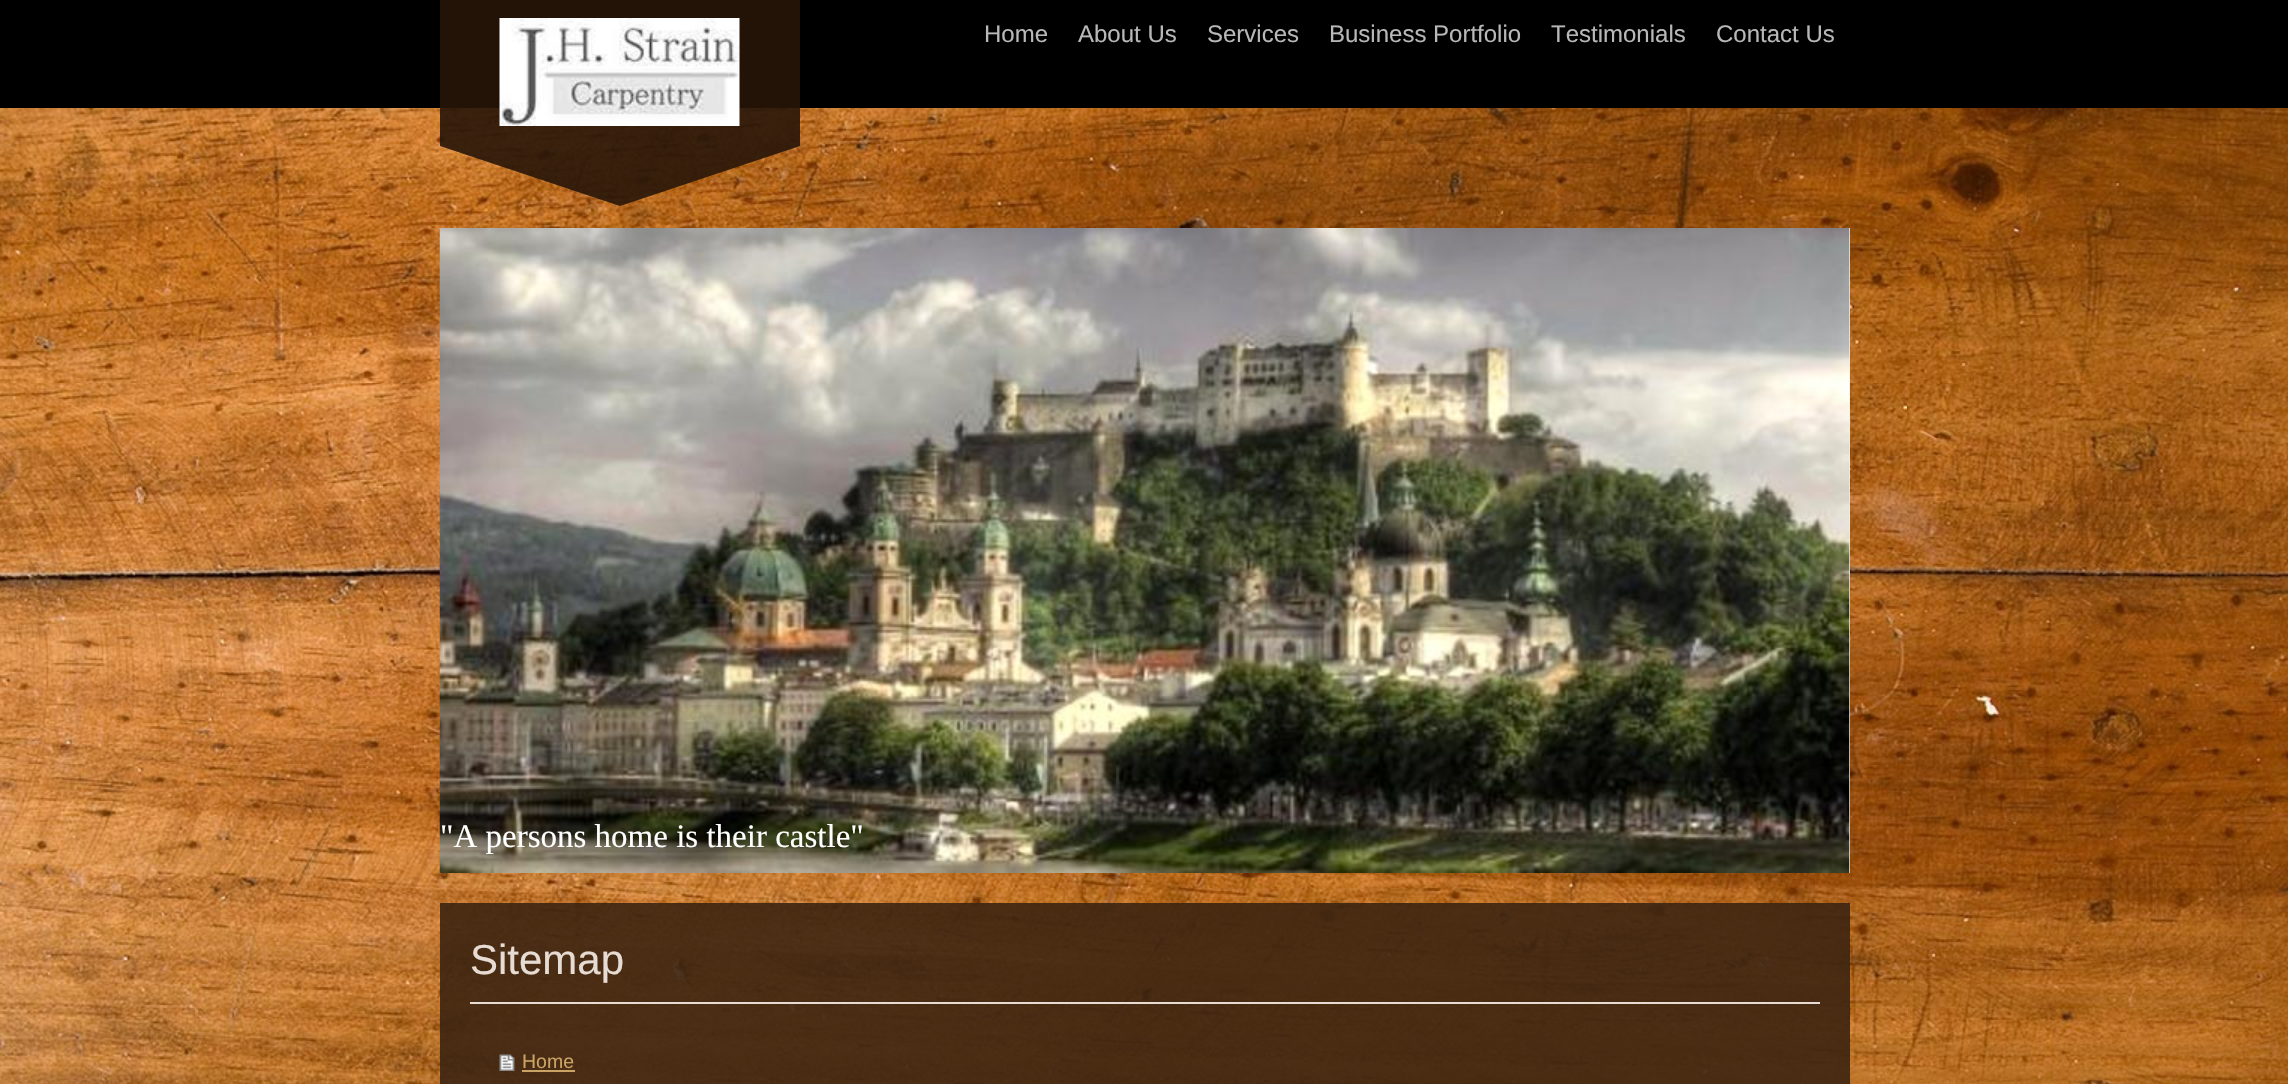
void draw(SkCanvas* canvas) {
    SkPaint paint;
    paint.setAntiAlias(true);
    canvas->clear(0xFFFFFFFF);
    canvas->drawImageRect(SkImages::DeferredFromEncodedData(SkData::MakeFromFileName("img1.png")), SkRect::MakeXYWH(0, 108, 2288, 976), SkSamplingOptions());
    paint.setColor(0xFF000000);
    canvas->drawRect(SkRect::MakeXYWH(0, 0, 2288, 108), paint);
    paint.setColor(0xE6271508);
    canvas->drawRect(SkRect::MakeXYWH(440, 0, 360, 146), paint);
    canvas->drawImageRect(SkImages::DeferredFromEncodedData(SkData::MakeFromFileName("img2.png")), SkRect::MakeXYWH(499, 18, 241, 108), SkSamplingOptions());
    canvas->drawPath(SkPathBuilder().moveTo(440, 146).lineTo(800, 146).lineTo(620, 206).close().detach(), paint);
    SkFont font1(fontMgr->matchFamilyStyle("Liberation Sans", SkFontStyle::Normal()), 24);
    font1.setSubpixel(true);
    paint.setColor(0xFFB8B8B8);
    canvas->drawString("Home", 984, 42, font1, paint);
    canvas->drawString("About Us", 1078, 42, font1, paint);
    canvas->drawString("Services", 1207, 42, font1, paint);
    canvas->drawString("Business Portfolio", 1329, 42, font1, paint);
    canvas->drawString("Testimonials", 1551, 42, font1, paint);
    canvas->drawString("Contact Us", 1716, 42, font1, paint);
    paint.setColor(0xFFEEEEEE);
    canvas->drawRect(SkRect::MakeXYWH(1849, 228, 1, 645), paint);
    canvas->drawImageRect(SkImages::DeferredFromEncodedData(SkData::MakeFromFileName("img3.png")), SkRect::MakeXYWH(439, 228, 1411, 645), SkSamplingOptions());
    SkFont font2(fontMgr->matchFamilyStyle("Liberation Serif", SkFontStyle::Normal()), 33);
    font2.setSubpixel(true);
    paint.setColor(0xFFFFFFFF);
    canvas->drawString("\"A persons home is their castle\"", 440, 847, font2, paint);
    paint.setColor(0xE63C230F);
    canvas->drawRect(SkRect::MakeXYWH(440, 903, 1410, 181), paint);
    paint.setColor(0xFFE7DCD4);
    canvas->drawRect(SkRect::MakeXYWH(470, 1002, 1350, 2), paint);
    SkFont font3(fontMgr->matchFamilyStyle("Liberation Sans", SkFontStyle::Normal()), 42);
    font3.setSubpixel(true);
    canvas->drawString("Sitemap", 470, 974, font3, paint);
    canvas->drawImageRect(SkImages::DeferredFromEncodedData(SkData::MakeFromFileName("img4.png")), SkRect::MakeXYWH(499, 1054, 16, 17), SkSamplingOptions());
    SkFont font4(fontMgr->matchFamilyStyle("Liberation Sans", SkFontStyle::Normal()), 19.5f);
    font4.setSubpixel(true);
    paint.setColor(0xFFCBA465);
    canvas->drawString("Home", 522, 1068, font4, paint);
    canvas->drawRect(SkRect::MakeXYWH(522, 1070, 53, 2), paint);
}
